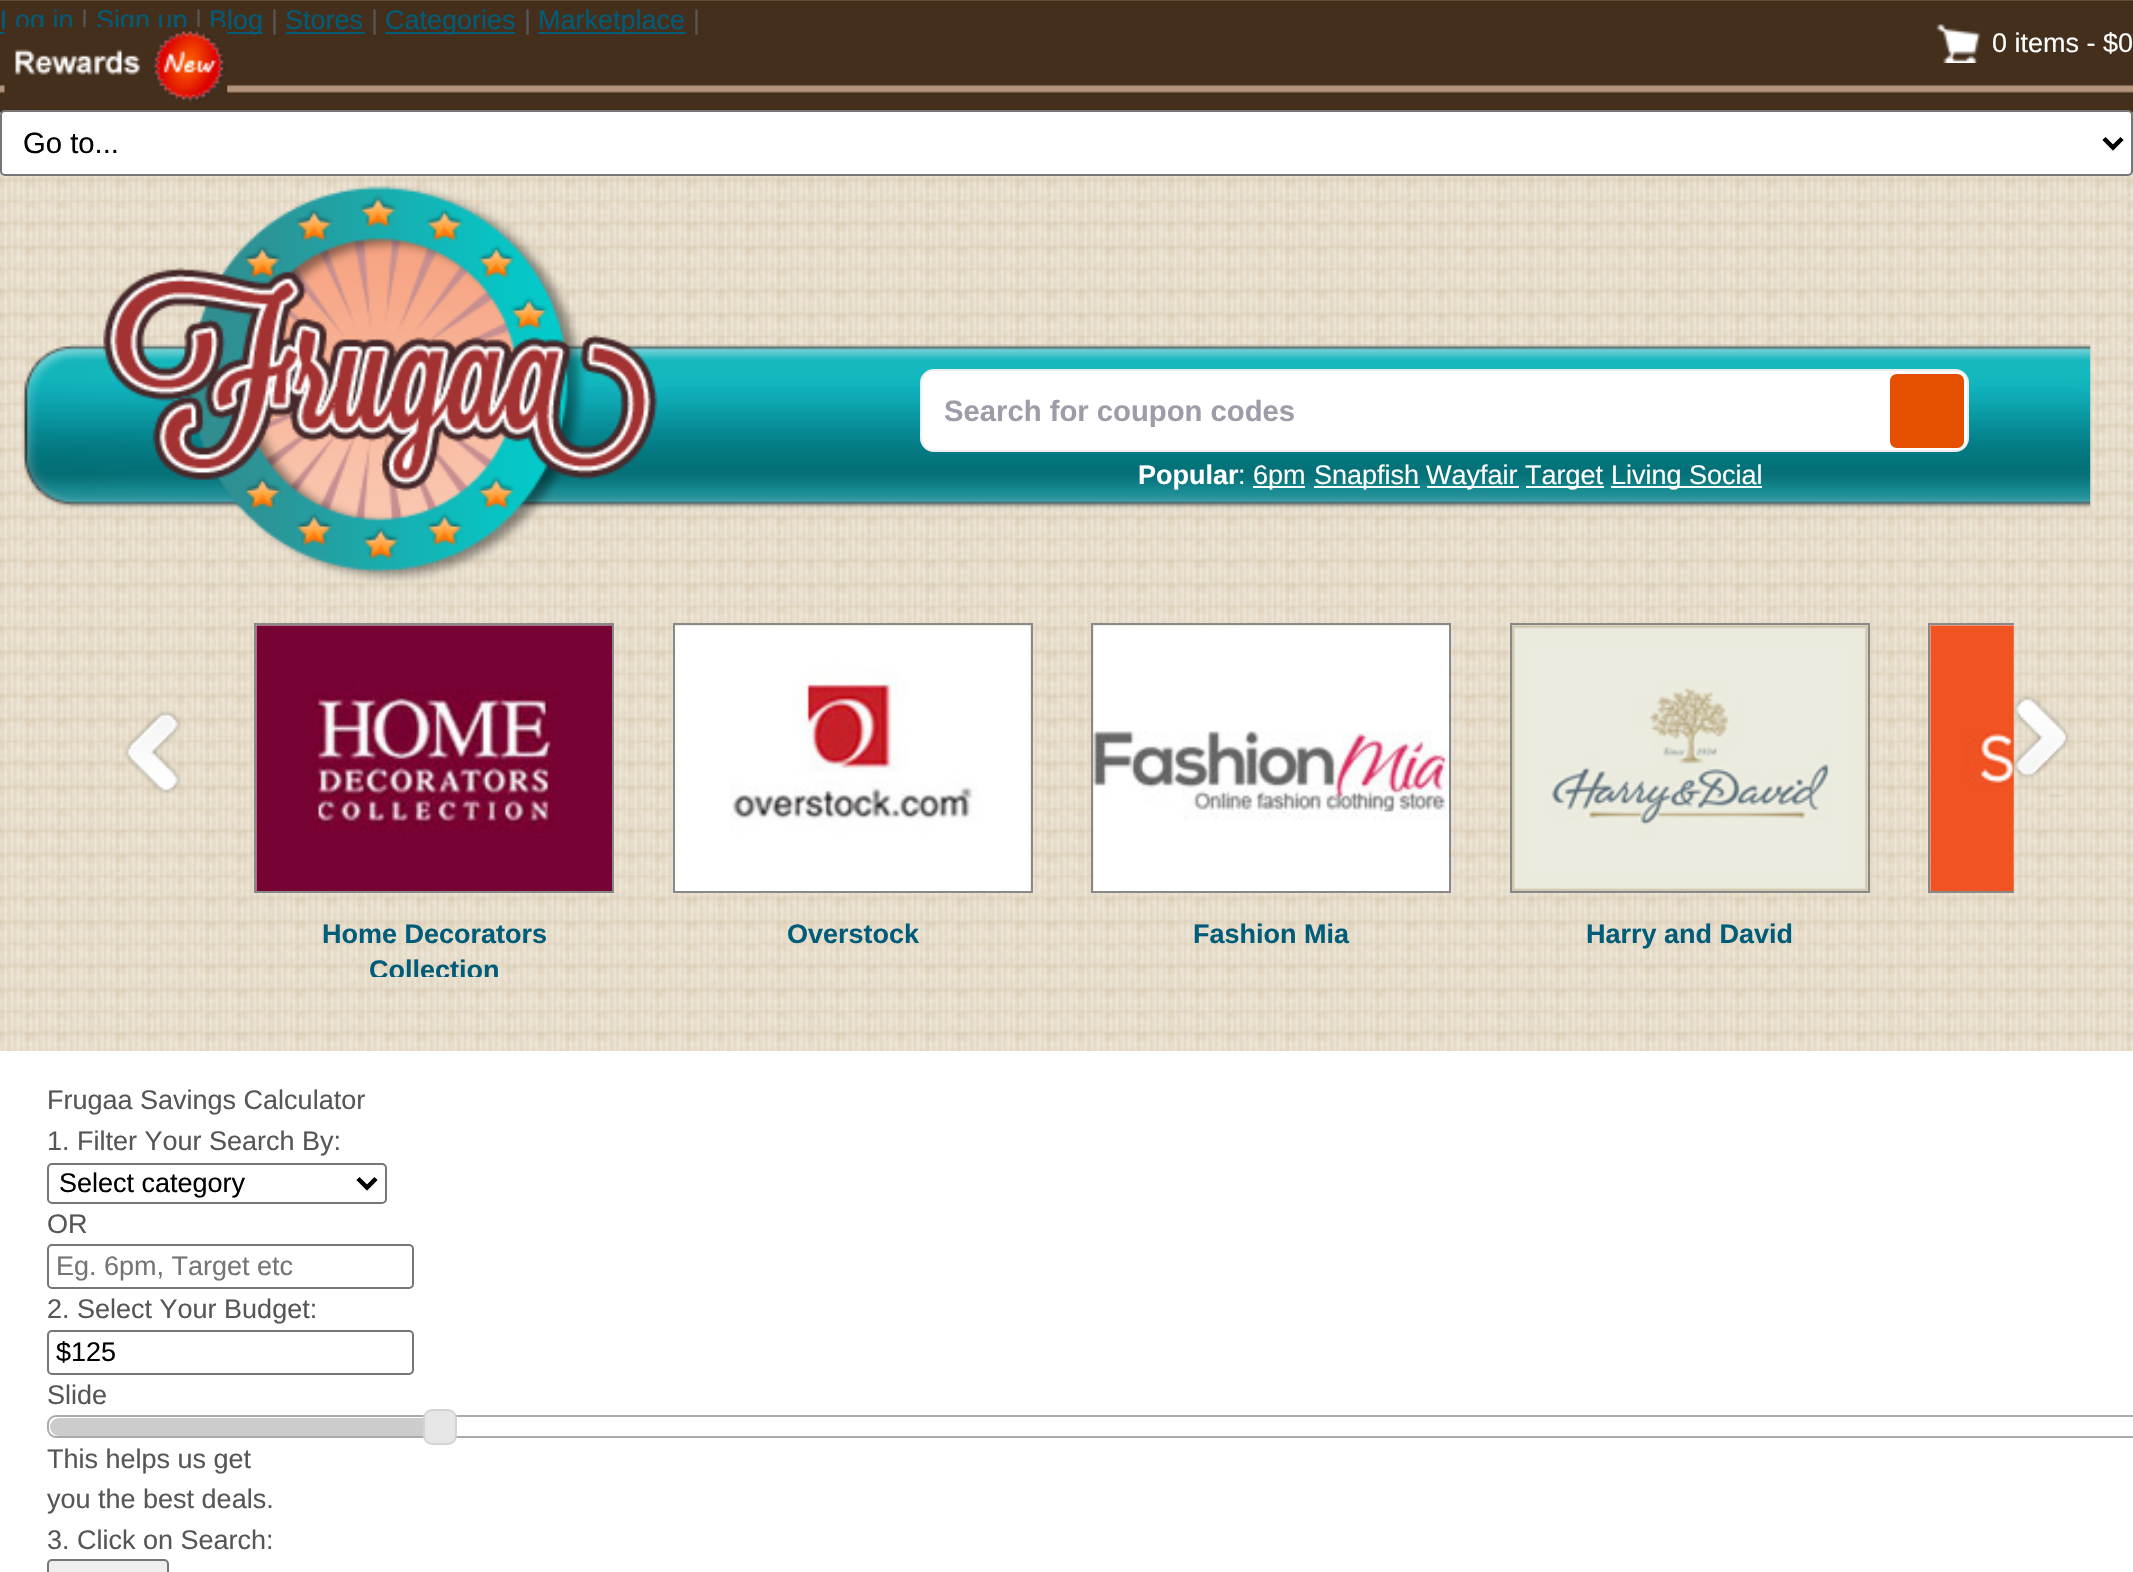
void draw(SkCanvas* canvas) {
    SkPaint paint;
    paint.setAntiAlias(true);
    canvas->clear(0xFFFFFFFF);
    canvas->drawImageRect(SkImages::DeferredFromEncodedData(SkData::MakeFromFileName("img1.png")), SkRect::MakeXYWH(0, 112, 2133, 939), SkSamplingOptions());
    canvas->drawImageRect(SkImages::DeferredFromEncodedData(SkData::MakeFromFileName("img2.png")), SkRect::MakeXYWH(0, 0, 2133, 113), SkSamplingOptions());
    paint.setColor(0xFF005C78);
    canvas->drawRect(SkRect::MakeXYWH(0, 32, 5, 2), paint);
    SkFont font1(fontMgr->matchFamilyStyle("Liberation Sans", SkFontStyle::Normal()), 27);
    font1.setSubpixel(true);
    canvas->drawString("Log in", 0, 29, font1, paint);
    paint.setColor(0xFF555655);
    canvas->drawString("|", 81, 29, font1, paint);
    paint.setColor(0xFF005C78);
    canvas->drawString("Sign up", 96, 29, font1, paint);
    paint.setColor(0xFF555655);
    canvas->drawString("|", 195, 29, font1, paint);
    paint.setColor(0xFF005C78);
    canvas->drawRect(SkRect::MakeXYWH(227, 32, 36, 2), paint);
    canvas->drawString("Blog", 209, 29, font1, paint);
    paint.setColor(0xFF555655);
    canvas->drawString("|", 271, 29, font1, paint);
    paint.setColor(0xFF005C78);
    canvas->drawString("Stores", 285, 29, font1, paint);
    canvas->drawRect(SkRect::MakeXYWH(286, 32, 79, 2), paint);
    paint.setColor(0xFF555655);
    canvas->drawString("|", 371, 29, font1, paint);
    paint.setColor(0xFF005C78);
    canvas->drawRect(SkRect::MakeXYWH(385, 32, 130, 2), paint);
    canvas->drawString("Categories", 385, 29, font1, paint);
    paint.setColor(0xFF555655);
    canvas->drawString("|", 524, 29, font1, paint);
    paint.setColor(0xFF005C78);
    canvas->drawRect(SkRect::MakeXYWH(538, 32, 148, 2), paint);
    canvas->drawString("Marketplace", 538, 29, font1, paint);
    paint.setColor(0xFF555655);
    canvas->drawString("|", 693, 29, font1, paint);
    canvas->drawImageRect(SkImages::DeferredFromEncodedData(SkData::MakeFromFileName("img3.png")), SkRect::MakeXYWH(4, 27, 224, 75), SkSamplingOptions());
    canvas->drawImageRect(SkImages::DeferredFromEncodedData(SkData::MakeFromFileName("img4.png")), SkRect::MakeXYWH(1936, 24, 45, 39), SkSamplingOptions());
    paint.setColor(0xFFFFFFFF);
    canvas->drawString("0 items - $0", 1992, 52, font1, paint);
    canvas->drawRoundRect(SkRect::MakeXYWH(1, 111, 2131, 64), 4, 4, paint);
    paint.setStyle(SkPaint::kStroke_Style);
    paint.setStrokeWidth(2);
    paint.setColor(0xFF767676);
    canvas->drawRoundRect(SkRect::MakeXYWH(1, 111, 2131, 64), 4, 4, paint);
    paint.setStrokeWidth(4.5f);
    paint.setColor(0xFF000000);
    canvas->drawPath(SkPathBuilder().moveTo(2104, 138.5f).lineTo(2113, 147.5f).lineTo(2122, 138.5f).detach(), paint);
    SkFont font2(fontMgr->matchFamilyStyle("Liberation Sans", SkFontStyle::Normal()), 29.25f);
    font2.setSubpixel(true);
    paint.setStyle(SkPaint::kFill_Style);
    canvas->drawString("Go to...", 23, 153, font2, paint);
    canvas->drawImageRect(SkImages::DeferredFromEncodedData(SkData::MakeFromFileName("img5.png")), SkRect::MakeXYWH(22, 344, 2069, 165), SkSamplingOptions());
    canvas->drawImageRect(SkImages::DeferredFromEncodedData(SkData::MakeFromFileName("img6.png")), SkRect::MakeXYWH(103, 185, 555, 397), SkSamplingOptions());
    paint.setColor(0xFFFFFFFF);
    canvas->drawRoundRect(SkRect::MakeXYWH(921, 370, 1047, 81), 13, 13, paint);
    paint.setStyle(SkPaint::kStroke_Style);
    paint.setStrokeWidth(2);
    paint.setColor(0xFFEDEDED);
    canvas->drawRoundRect(SkRect::MakeXYWH(921, 370, 1047, 81), 13, 13, paint);
    SkFont font3(fontMgr->matchFamilyStyle("Liberation Sans", SkFontStyle::Bold()), 29.25f);
    font3.setSubpixel(true);
    paint.setStyle(SkPaint::kFill_Style);
    paint.setColor(0xFF9C9DA9);
    canvas->drawString("Search for coupon codes", 944, 421, font3, paint);
    paint.setColor(0xFFE45000);
    canvas->drawPath(SkPathBuilder().moveTo(1897, 374).lineTo(1957, 374).cubicTo(1961, 374, 1964, 377, 1964, 381).lineTo(1964, 441).cubicTo(1964, 445, 1961, 448, 1957, 448).lineTo(1897, 448).cubicTo(1893, 448, 1890, 445, 1890, 441).lineTo(1890, 381).cubicTo(1890, 377, 1893, 374, 1897, 374).close().detach(), paint);
    SkFont font4(fontMgr->matchFamilyStyle("Liberation Sans", SkFontStyle::Bold()), 27);
    font4.setSubpixel(true);
    paint.setColor(0xFFFFFFFF);
    canvas->drawString("Popular", 1138, 484, font4, paint);
    canvas->drawString(":", 1238, 484, font1, paint);
    canvas->drawRect(SkRect::MakeXYWH(1253, 486, 52, 2), paint);
    canvas->drawString("6pm", 1253, 484, font1, paint);
    canvas->drawRect(SkRect::MakeXYWH(1314, 486, 106, 2), paint);
    canvas->drawString("Snapfish", 1314, 484, font1, paint);
    canvas->drawRect(SkRect::MakeXYWH(1427, 486, 92, 2), paint);
    canvas->drawString("Wayfair", 1426, 484, font1, paint);
    canvas->drawRect(SkRect::MakeXYWH(1526, 486, 78, 2), paint);
    canvas->drawString("Target", 1525, 484, font1, paint);
    canvas->drawRect(SkRect::MakeXYWH(1611, 486, 151, 2), paint);
    canvas->drawString("Living Social", 1611, 484, font1, paint);
    canvas->drawImageRect(SkImages::DeferredFromEncodedData(SkData::MakeFromFileName("img7.png")), SkRect::MakeXYWH(124, 711, 57, 83), SkSamplingOptions());
    canvas->save();
    canvas->clipRect(SkRect::MakeXYWH(221, 601, 1793, 376));
    paint.setStyle(SkPaint::kStroke_Style);
    paint.setColor(0xFF888888);
    canvas->drawRect(SkRect::MakeXYWH(1929, 624, 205, 268), paint);
    canvas->restore();
    canvas->drawImageRect(SkImages::DeferredFromEncodedData(SkData::MakeFromFileName("img8.png")), SkRect::MakeXYWH(2014, 696, 56, 101), SkSamplingOptions());
    canvas->drawImageRect(SkImages::DeferredFromEncodedData(SkData::MakeFromFileName("img9.png")), SkRect::MakeXYWH(1930, 625, 84, 266), SkSamplingOptions());
    canvas->drawRect(SkRect::MakeXYWH(255, 624, 358, 268), paint);
    canvas->drawImageRect(SkImages::DeferredFromEncodedData(SkData::MakeFromFileName("img10.png")), SkRect::MakeXYWH(256, 625, 356, 266), SkSamplingOptions());
    paint.setStyle(SkPaint::kFill_Style);
    paint.setColor(0xFF005C78);
    canvas->drawString("Home Decorators", 322, 943, font4, paint);
    canvas->save();
    canvas->clipRect(SkRect::MakeXYWH(221, 601, 1793, 376));
    canvas->drawString("Collection", 369, 979, font4, paint);
    canvas->restore();
    paint.setStyle(SkPaint::kStroke_Style);
    paint.setColor(0xFF888888);
    canvas->drawRect(SkRect::MakeXYWH(674, 624, 358, 268), paint);
    canvas->drawImageRect(SkImages::DeferredFromEncodedData(SkData::MakeFromFileName("img11.png")), SkRect::MakeXYWH(675, 625, 356, 266), SkSamplingOptions());
    paint.setStyle(SkPaint::kFill_Style);
    paint.setColor(0xFF005C78);
    canvas->drawString("Overstock", 787, 943, font4, paint);
    paint.setStyle(SkPaint::kStroke_Style);
    paint.setColor(0xFF888888);
    canvas->drawRect(SkRect::MakeXYWH(1092, 624, 358, 268), paint);
    canvas->drawImageRect(SkImages::DeferredFromEncodedData(SkData::MakeFromFileName("img12.png")), SkRect::MakeXYWH(1093, 625, 356, 266), SkSamplingOptions());
    paint.setStyle(SkPaint::kFill_Style);
    paint.setColor(0xFF005C78);
    canvas->drawString("Fashion Mia", 1193, 943, font4, paint);
    paint.setStyle(SkPaint::kStroke_Style);
    paint.setColor(0xFF888888);
    canvas->drawRect(SkRect::MakeXYWH(1511, 624, 358, 268), paint);
    canvas->drawImageRect(SkImages::DeferredFromEncodedData(SkData::MakeFromFileName("img13.png")), SkRect::MakeXYWH(1512, 625, 356, 266), SkSamplingOptions());
    paint.setStyle(SkPaint::kFill_Style);
    paint.setColor(0xFF005C78);
    canvas->drawString("Harry and David", 1586, 943, font4, paint);
    paint.setColor(0xFF555655);
    canvas->drawString("Frugaa Savings Calculator", 47, 1109, font1, paint);
    canvas->drawString("1. Filter Your Search By:", 47, 1150, font1, paint);
    paint.setStyle(SkPaint::kStroke_Style);
    paint.setColor(0xFF767676);
    canvas->drawRoundRect(SkRect::MakeXYWH(48, 1164, 338, 39), 4, 4, paint);
    paint.setStrokeWidth(4.5f);
    paint.setColor(0xFF000000);
    canvas->drawPath(SkPathBuilder().moveTo(358, 1178.5f).lineTo(367, 1187.5f).lineTo(376, 1178.5f).detach(), paint);
    paint.setStyle(SkPaint::kFill_Style);
    canvas->drawString("Select category", 59, 1192, font1, paint);
    paint.setColor(0xFF555655);
    canvas->drawString("OR", 47, 1233, font1, paint);
    paint.setStyle(SkPaint::kStroke_Style);
    paint.setStrokeWidth(2);
    paint.setColor(0xFF767676);
    canvas->drawRoundRect(SkRect::MakeXYWH(48, 1245, 365, 43), 4, 4, paint);
    paint.setStyle(SkPaint::kFill_Style);
    paint.setColor(0xFF757575);
    canvas->drawString("Eg. 6pm, Target etc", 56, 1275, font1, paint);
    paint.setColor(0xFF555655);
    canvas->drawString("2. Select Your Budget:", 47, 1318, font1, paint);
    paint.setStyle(SkPaint::kStroke_Style);
    paint.setColor(0xFF767676);
    canvas->drawRoundRect(SkRect::MakeXYWH(48, 1331, 365, 43), 4, 4, paint);
    paint.setStyle(SkPaint::kFill_Style);
    paint.setColor(0xFF000000);
    canvas->drawString("$125", 56, 1361, font1, paint);
    paint.setColor(0xFF555655);
    canvas->drawString("Slide", 47, 1404, font1, paint);
    paint.setStyle(SkPaint::kStroke_Style);
    paint.setColor(0xFFAAAAAA);
    canvas->drawRoundRect(SkRect::MakeXYWH(48, 1416, 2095, 21), 8, 8, paint);
    paint.setStyle(SkPaint::kFill_Style);
    paint.setColor(0xFFCCCCCC);
    canvas->drawRoundRect(SkRect::MakeXYWH(50, 1418, 389, 18), 9, 9, paint);
    paint.setColor(0xFFE6E6E6);
    canvas->drawRoundRect(SkRect::MakeXYWH(424, 1410, 32, 34), 8, 8, paint);
    paint.setStyle(SkPaint::kStroke_Style);
    paint.setColor(0xFFD3D3D3);
    canvas->drawRoundRect(SkRect::MakeXYWH(424, 1410, 32, 34), 8, 8, paint);
    paint.setStyle(SkPaint::kFill_Style);
    paint.setColor(0xFF555655);
    canvas->drawString("This helps us get", 47, 1468, font1, paint);
    canvas->drawString("you the best deals.", 47, 1508, font1, paint);
    canvas->drawString("3. Click on Search:", 47, 1549, font1, paint);
    paint.setColor(0xFFEFEFEF);
    canvas->drawRoundRect(SkRect::MakeXYWH(48, 1560, 120, 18), 4, 4, paint);
    paint.setStyle(SkPaint::kStroke_Style);
    paint.setColor(0xFF767676);
    canvas->drawRoundRect(SkRect::MakeXYWH(48, 1560, 120, 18), 4, 4, paint);
}
